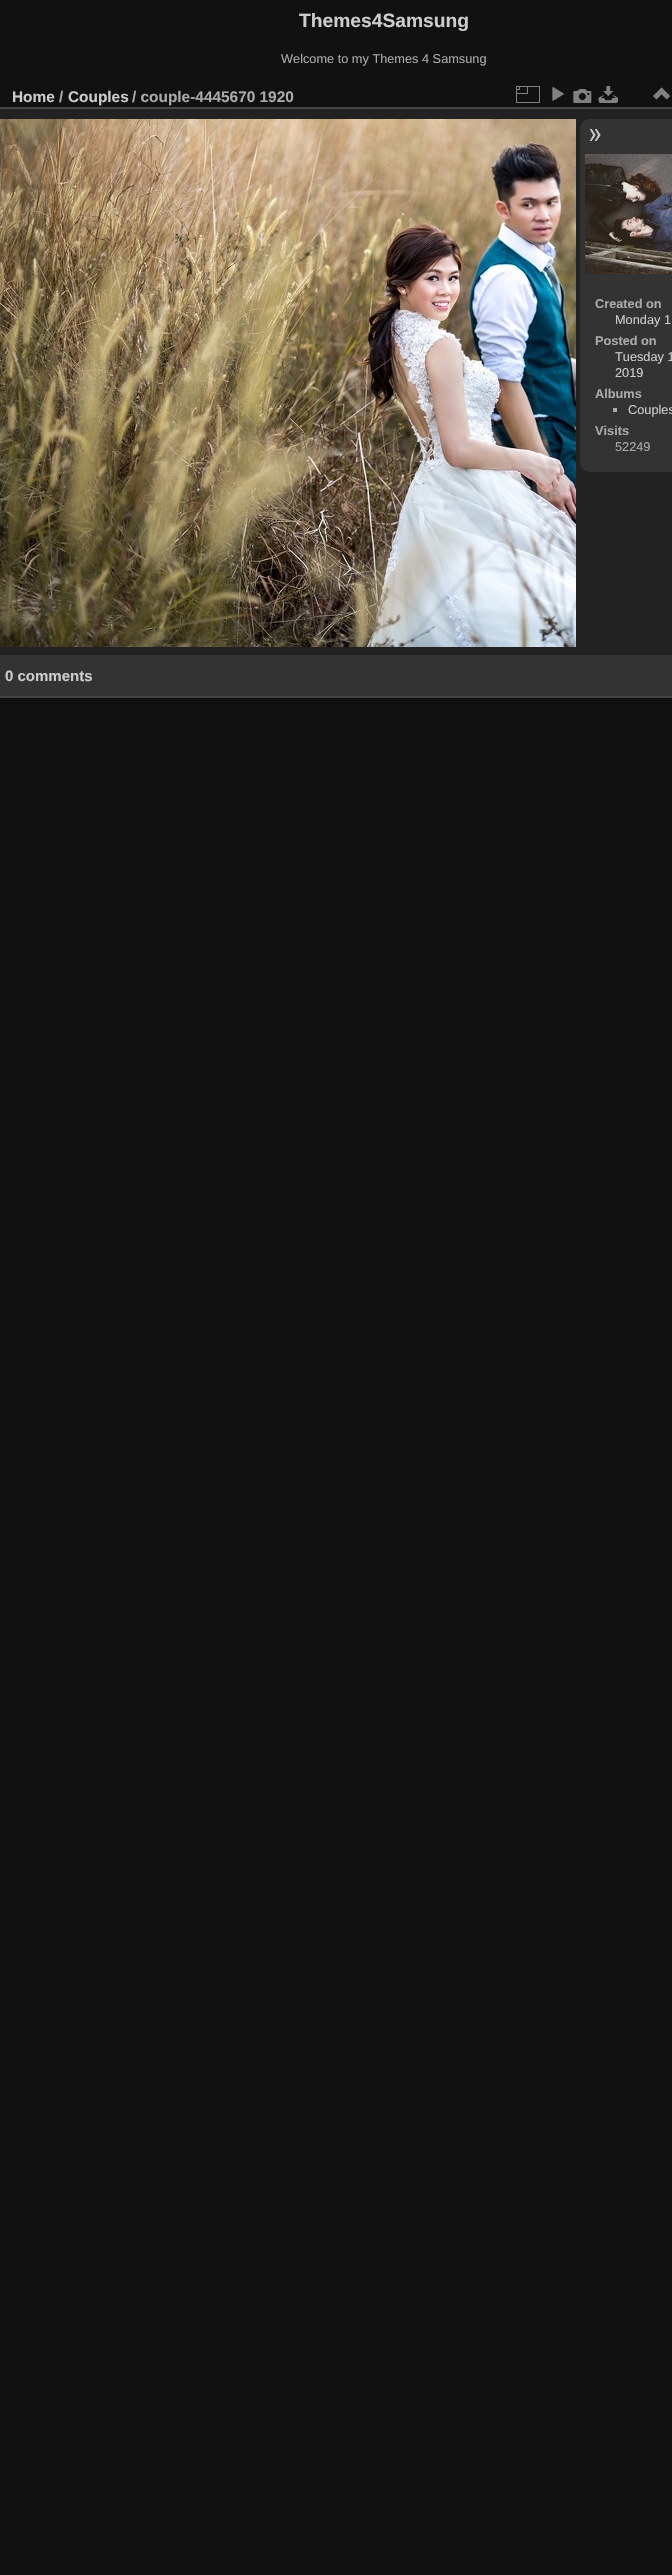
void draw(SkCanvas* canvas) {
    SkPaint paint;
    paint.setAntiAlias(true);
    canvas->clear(0xFF111111);
    SkFont font1(fontMgr->matchFamilyStyle("Liberation Sans", SkFontStyle::Bold()), 19.25f);
    font1.setSubpixel(true);
    paint.setColor(0xFFCCCCCC);
    canvas->drawString("Themes4Samsung", 299, 27, font1, paint);
    SkFont font2(fontMgr->matchFamilyStyle("Liberation Sans", SkFontStyle::Normal()), 12.75f);
    font2.setSubpixel(true);
    paint.setColor(0xFFAAAAAA);
    canvas->drawString("Welcome to my Themes 4 Samsung", 281, 63, font2, paint);
    paint.setColor(0xFF222222);
    canvas->drawRect(SkRect::MakeXYWH(0, 109, 672, 546), paint);
    paint.setColor(0xFF444444);
    canvas->drawRect(SkRect::MakeXYWH(0, 696, 672, 2), paint);
    canvas->drawRect(SkRect::MakeXYWH(0, 107, 672, 2), paint);
    SkFont font3(fontMgr->matchFamilyStyle("Liberation Sans", SkFontStyle::Bold()), 15.4f);
    font3.setSubpixel(true);
    paint.setColor(0xFFCCCCCC);
    canvas->drawString("Home", 12, 102, font3, paint);
    paint.setColor(0xFFAAAAAA);
    canvas->drawString("/", 59, 102, font3, paint);
    paint.setColor(0xFFCCCCCC);
    canvas->drawString("Couples", 68, 102, font3, paint);
    paint.setColor(0xFFAAAAAA);
    canvas->drawString("/ couple-4445670 1920", 132, 102, font3, paint);
    canvas->drawImageRect(SkImages::DeferredFromEncodedData(SkData::MakeFromFileName("img1.png")), SkRect::MakeXYWH(516, 86, 24, 17), SkSamplingOptions());
    canvas->drawImageRect(SkImages::DeferredFromEncodedData(SkData::MakeFromFileName("img2.png")), SkRect::MakeXYWH(552, 87, 12, 14), SkSamplingOptions());
    canvas->drawImageRect(SkImages::DeferredFromEncodedData(SkData::MakeFromFileName("img3.png")), SkRect::MakeXYWH(573, 89, 19, 14), SkSamplingOptions());
    canvas->drawImageRect(SkImages::DeferredFromEncodedData(SkData::MakeFromFileName("img4.png")), SkRect::MakeXYWH(598, 86, 21, 17), SkSamplingOptions());
    canvas->drawImageRect(SkImages::DeferredFromEncodedData(SkData::MakeFromFileName("img5.png")), SkRect::MakeXYWH(653, 87, 17, 13), SkSamplingOptions());
    canvas->drawImageRect(SkImages::DeferredFromEncodedData(SkData::MakeFromFileName("img6.png")), SkRect::MakeXYWH(0, 119, 576, 528), SkSamplingOptions());
    paint.setColor(0xFF333333);
    canvas->drawPath(SkPathBuilder().moveTo(590, 119).lineTo(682, 119).lineTo(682, 472).lineTo(590, 472).cubicTo(584.5f, 472, 580, 467.5f, 580, 462).lineTo(580, 129).cubicTo(580, 123.5f, 584.5f, 119, 590, 119).close().detach(), paint);
    canvas->drawImageRect(SkImages::DeferredFromEncodedData(SkData::MakeFromFileName("img7.png")), SkRect::MakeXYWH(589, 129, 12, 12), SkSamplingOptions());
    canvas->drawImageRect(SkImages::DeferredFromEncodedData(SkData::MakeFromFileName("img8.png")), SkRect::MakeXYWH(585, 154, 87, 120), SkSamplingOptions());
    SkFont font4(fontMgr->matchFamilyStyle("Liberation Sans", SkFontStyle::Bold()), 12.75f);
    font4.setSubpixel(true);
    paint.setColor(0xFFAAAAAA);
    canvas->drawString("Created on", 595, 308, font4, paint);
    paint.setColor(0xFFCCCCCC);
    canvas->drawString("Monday 1", 615, 324, font2, paint);
    paint.setColor(0xFFAAAAAA);
    canvas->drawString("Posted on", 595, 345, font4, paint);
    paint.setColor(0xFFCCCCCC);
    canvas->drawString("Tuesday 1", 615, 361, font2, paint);
    canvas->drawString("2019", 615, 377, font2, paint);
    paint.setColor(0xFFAAAAAA);
    canvas->drawString("Albums", 595, 398, font4, paint);
    canvas->drawRect(SkRect::MakeXYWH(613, 408, 4, 4), paint);
    paint.setColor(0xFFCCCCCC);
    canvas->drawString("Couples", 628, 414, font2, paint);
    paint.setColor(0xFFAAAAAA);
    canvas->drawString("Visits", 595, 435, font4, paint);
    canvas->drawString("52249", 615, 451, font2, paint);
    paint.setColor(0xFF333333);
    canvas->drawRect(SkRect::MakeXYWH(0, 655, 672, 41), paint);
    SkFont font5(fontMgr->matchFamilyStyle("Liberation Sans", SkFontStyle::Bold()), 15);
    font5.setSubpixel(true);
    paint.setColor(0xFFCCCCCC);
    canvas->drawString("0 comments", 5, 681, font5, paint);
}
